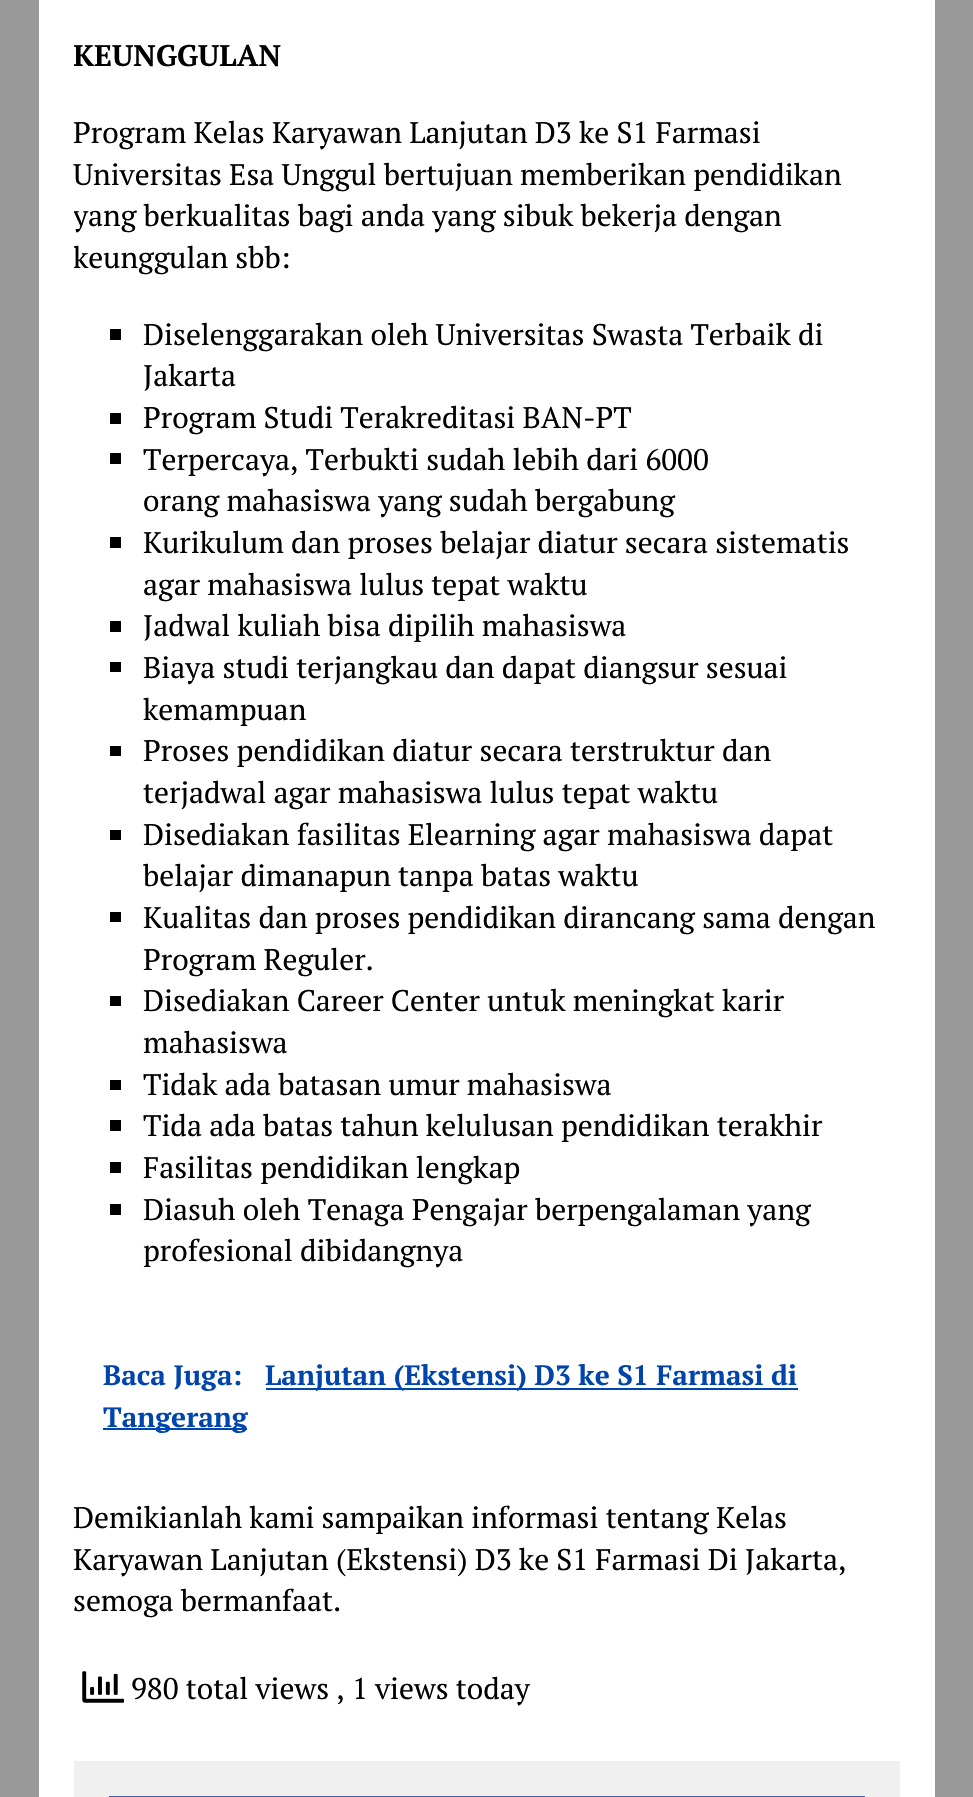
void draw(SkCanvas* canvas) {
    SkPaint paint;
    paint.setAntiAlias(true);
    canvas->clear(0xFF999999);
    paint.setColor(0xFFFFFFFF);
    canvas->drawRect(SkRect::MakeXYWH(39, 0, 896, 1797), paint);
    canvas->save();
    canvas->clipRect(SkRect::MakeXYWH(74, 0, 826, 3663));
    SkFont font1(fontMgr->matchFamilyStyle("PT Serif", SkFontStyle::Bold()), 29.75f);
    font1.setSubpixel(true);
    paint.setColor(0xFF000000);
    canvas->drawString("KEUNGGULAN", 73, 66, font1, paint);
    canvas->restore();
    SkFont font2(fontMgr->matchFamilyStyle("PT Serif", SkFontStyle::Normal()), 29.75f);
    font2.setSubpixel(true);
    canvas->drawString("Program Kelas Karyawan Lanjutan D3 ke S1 Farmasi", 73, 143, font2, paint);
    canvas->drawString("Universitas Esa Unggul bertujuan memberikan pendidikan", 73, 185, font2, paint);
    canvas->save();
    canvas->clipRect(SkRect::MakeXYWH(74, 0, 826, 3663));
    canvas->drawString("yang berkualitas bagi anda yang sibuk bekerja dengan", 73, 226, font2, paint);
    canvas->drawString("keunggulan sbb:", 73, 268, font2, paint);
    canvas->restore();
    canvas->drawRect(SkRect::MakeXYWH(110, 329, 11, 11), paint);
    canvas->drawString("Diselenggarakan oleh Universitas Swasta Terbaik di", 143, 345, font2, paint);
    canvas->drawString("Jakarta", 143, 386, font2, paint);
    canvas->drawRect(SkRect::MakeXYWH(110, 413, 11, 11), paint);
    canvas->drawString("Program Studi Terakreditasi BAN-PT", 143, 428, font2, paint);
    canvas->drawRect(SkRect::MakeXYWH(110, 453, 11, 11), paint);
    canvas->drawString("Terpercaya, Terbukti sudah lebih dari 6000", 143, 470, font2, paint);
    canvas->drawString("orang mahasiswa yang sudah bergabung", 143, 511, font2, paint);
    canvas->drawRect(SkRect::MakeXYWH(110, 537, 11, 11), paint);
    canvas->drawString("Kurikulum dan proses belajar diatur secara sistematis", 143, 553, font2, paint);
    canvas->drawString("agar mahasiswa lulus tepat waktu", 143, 595, font2, paint);
    canvas->drawRect(SkRect::MakeXYWH(110, 621, 11, 11), paint);
    canvas->drawString("Jadwal kuliah bisa dipilih mahasiswa", 143, 636, font2, paint);
    canvas->drawRect(SkRect::MakeXYWH(110, 662, 11, 10), paint);
    canvas->drawString("Biaya studi terjangkau dan dapat diangsur sesuai", 143, 678, font2, paint);
    canvas->drawString("kemampuan", 143, 720, font2, paint);
    canvas->drawRect(SkRect::MakeXYWH(110, 746, 11, 10), paint);
    canvas->drawString("Proses pendidikan diatur secara terstruktur dan", 143, 761, font2, paint);
    canvas->drawString("terjadwal agar mahasiswa lulus tepat waktu", 143, 803, font2, paint);
    canvas->drawRect(SkRect::MakeXYWH(110, 830, 11, 10), paint);
    canvas->drawString("Disediakan fasilitas Elearning agar mahasiswa dapat", 143, 845, font2, paint);
    canvas->drawString("belajar dimanapun tanpa batas waktu", 143, 886, font2, paint);
    canvas->drawRect(SkRect::MakeXYWH(110, 912, 11, 10), paint);
    canvas->drawString("Kualitas dan proses pendidikan dirancang sama dengan", 143, 928, font2, paint);
    canvas->drawString("Program Reguler.", 143, 970, font2, paint);
    canvas->drawRect(SkRect::MakeXYWH(110, 996, 11, 10), paint);
    canvas->drawString("Disediakan Career Center untuk meningkat karir", 143, 1011, font2, paint);
    canvas->drawString("mahasiswa", 143, 1053, font2, paint);
    canvas->drawRect(SkRect::MakeXYWH(110, 1080, 11, 10), paint);
    canvas->drawString("Tidak ada batasan umur mahasiswa", 143, 1095, font2, paint);
    canvas->drawRect(SkRect::MakeXYWH(110, 1120, 11, 11), paint);
    canvas->drawString("Tida ada batas tahun kelulusan pendidikan terakhir", 143, 1136, font2, paint);
    canvas->drawRect(SkRect::MakeXYWH(110, 1162, 11, 11), paint);
    canvas->drawString("Fasilitas pendidikan lengkap", 143, 1178, font2, paint);
    canvas->drawRect(SkRect::MakeXYWH(110, 1204, 11, 11), paint);
    canvas->drawString("Diasuh oleh Tenaga Pengajar berpengalaman yang", 143, 1220, font2, paint);
    canvas->drawString("profesional dibidangnya", 143, 1261, font2, paint);
    SkFont font3(fontMgr->matchFamilyStyle("PT Serif", SkFontStyle::Bold()), 28);
    font3.setSubpixel(true);
    paint.setColor(0xFF0045AD);
    canvas->drawString("Baca Juga:", 103, 1385, font3, paint);
    canvas->drawRect(SkRect::MakeXYWH(266, 1388, 532, 2), paint);
    canvas->drawString("Lanjutan (Ekstensi) D3 ke S1 Farmasi di", 265, 1385, font3, paint);
    canvas->drawRect(SkRect::MakeXYWH(103, 1428, 144, 2), paint);
    canvas->drawString("Tangerang", 103, 1427, font3, paint);
    paint.setColor(0xFF000000);
    canvas->drawString("Demikianlah kami sampaikan informasi tentang Kelas", 73, 1528, font2, paint);
    canvas->drawString("Karyawan Lanjutan (Ekstensi) D3 ke S1 Farmasi Di Jakarta,", 73, 1570, font2, paint);
    canvas->drawString("semoga bermanfaat.", 73, 1611, font2, paint);
    canvas->drawImageRect(SkImages::DeferredFromEncodedData(SkData::MakeFromFileName("img1.png")), SkRect::MakeXYWH(82, 1671, 42, 32), SkSamplingOptions());
    canvas->drawString("980 total views , 1 views today", 131, 1699, font2, paint);
    paint.setColor(0xFFF0F0F0);
    canvas->drawRect(SkRect::MakeXYWH(74, 1761, 826, 36), paint);
    paint.setColor(0xFF3E64AD);
    canvas->drawRect(SkRect::MakeXYWH(109, 1796, 756, 1), paint);
}
